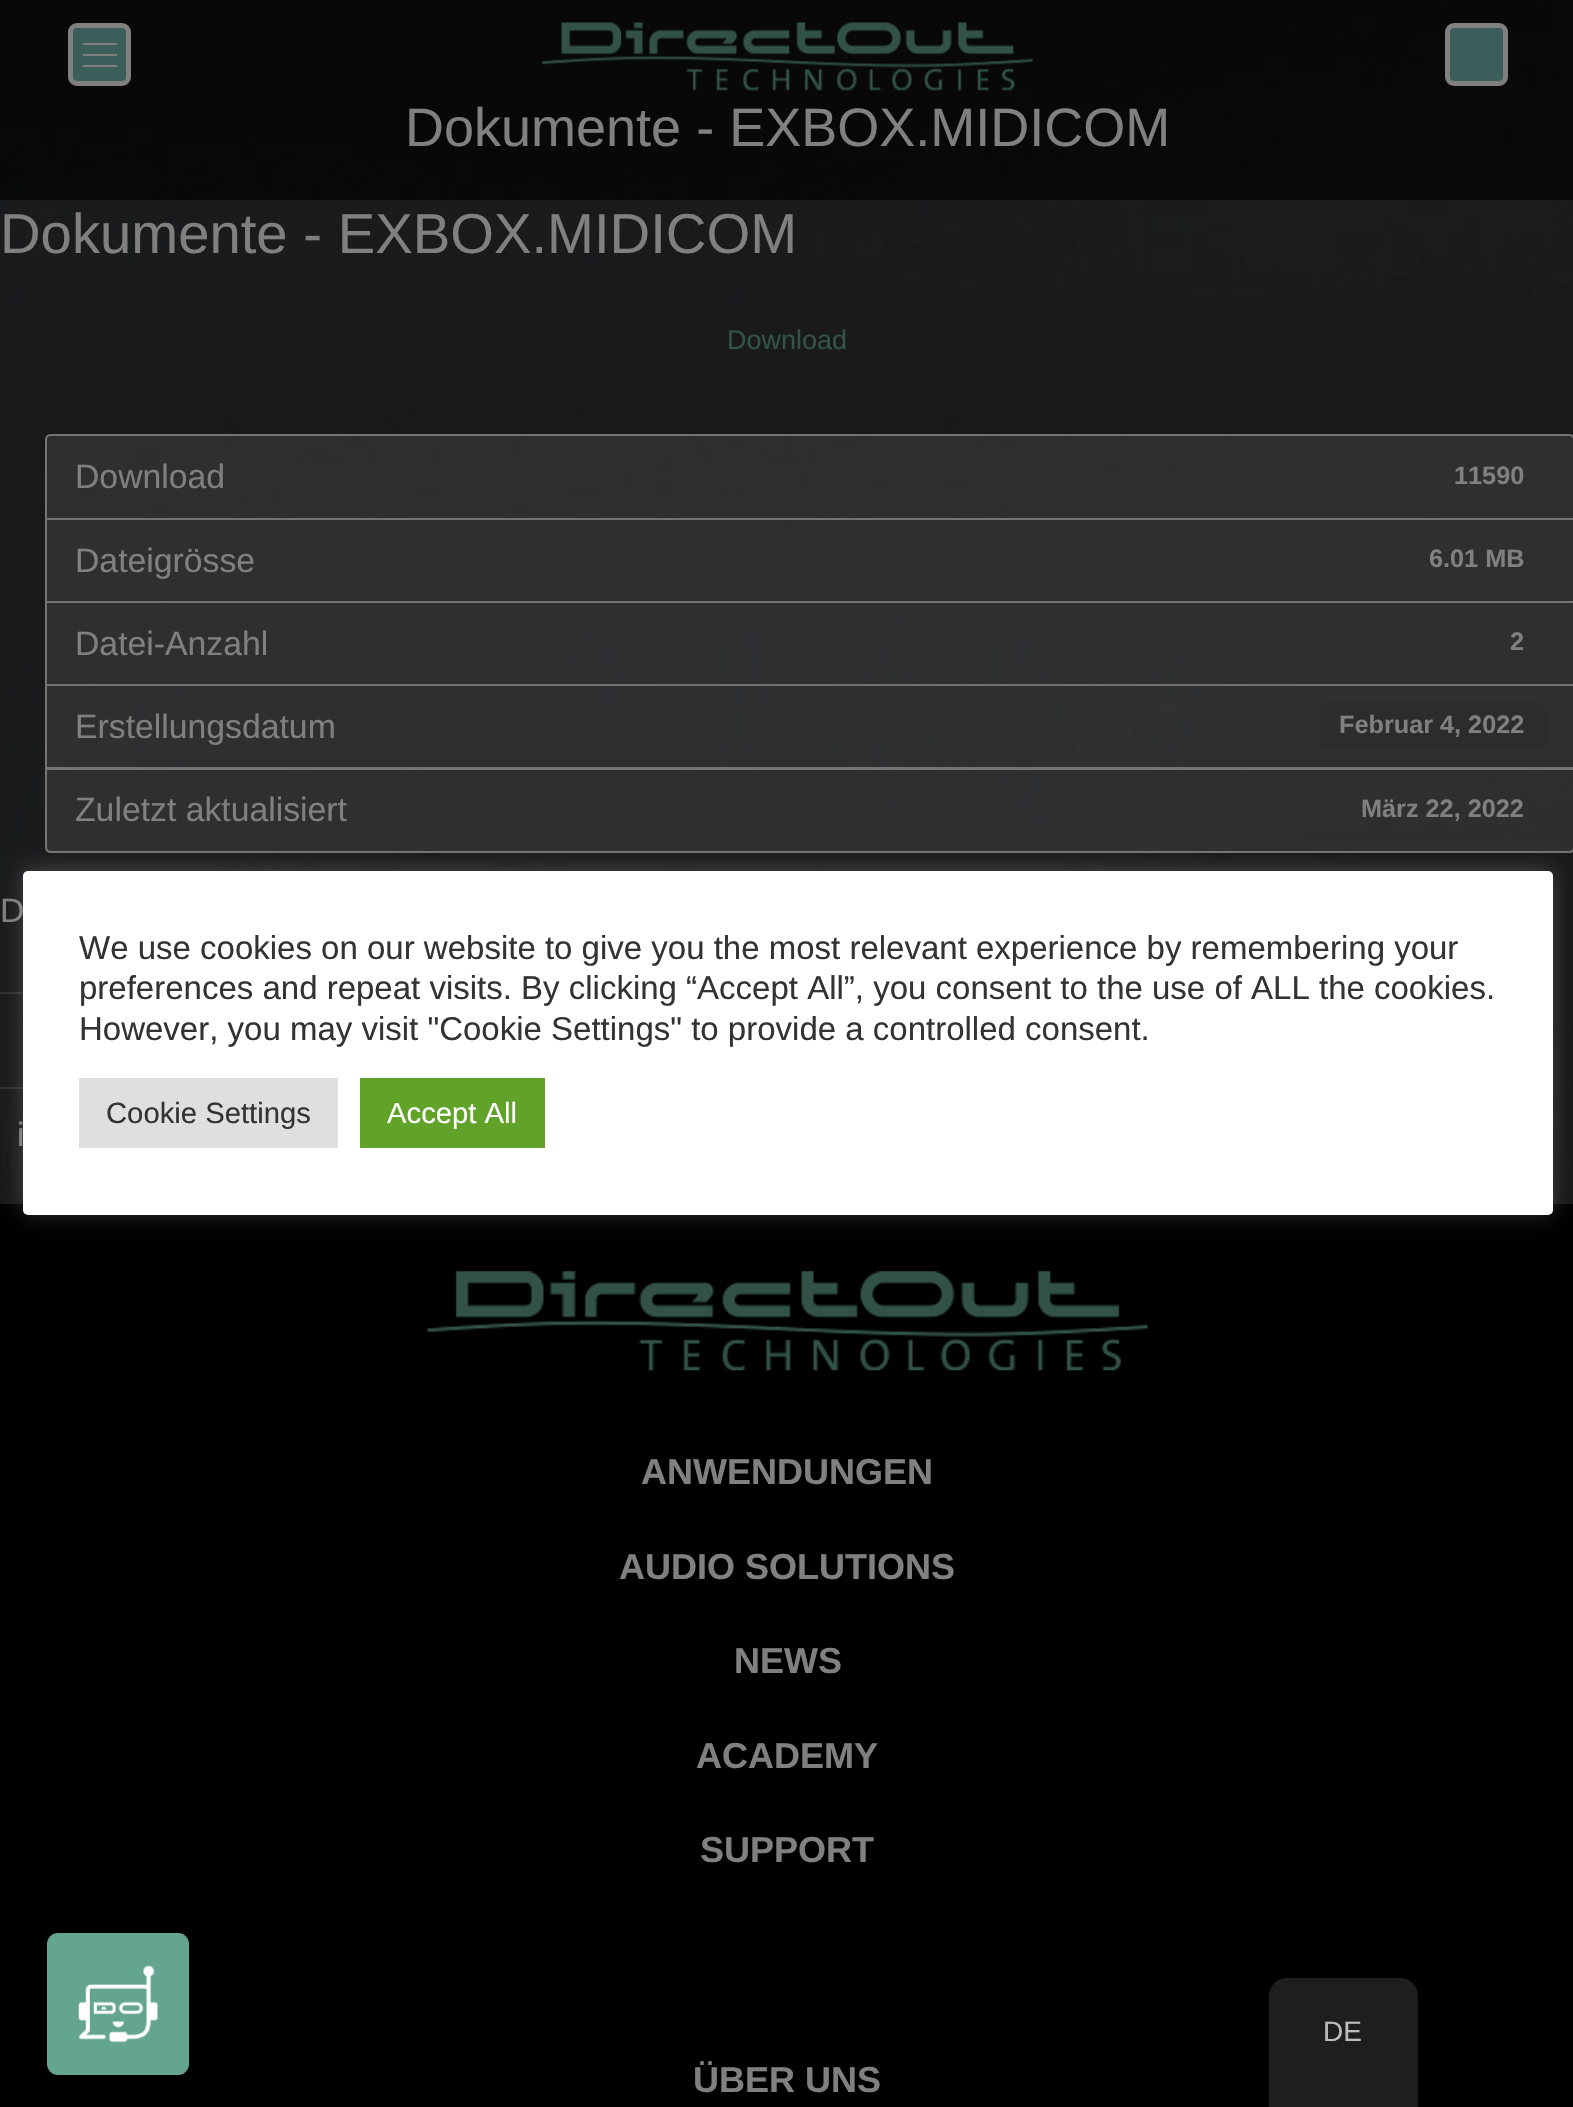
void draw(SkCanvas* canvas) {
    SkPaint paint;
    paint.setAntiAlias(true);
    canvas->clear(0xFFFFFFFF);
    canvas->drawImageRect(SkImages::DeferredFromEncodedData(SkData::MakeFromFileName("img2.png")), SkRect::MakeXYWH(0, 0, 1573, 1204), SkSamplingOptions());
    paint.setColor(0xB3000000);
    canvas->drawRect(SkRect::MakeXYWH(0, 0, 1573, 200), paint);
    paint.setColor(0xFF3C5E5A);
    canvas->drawRoundRect(SkRect::MakeXYWH(70.5f, 25.5f, 58, 58), 6.5f, 6.5f, paint);
    paint.setStyle(SkPaint::kStroke_Style);
    paint.setStrokeWidth(5);
    paint.setColor(0xFF808080);
    canvas->drawRoundRect(SkRect::MakeXYWH(70.5f, 25.5f, 58, 58), 6.5f, 6.5f, paint);
    paint.setStyle(SkPaint::kFill_Style);
    canvas->drawRect(SkRect::MakeXYWH(83, 65, 34, 2), paint);
    canvas->drawRect(SkRect::MakeXYWH(83, 43, 34, 2), paint);
    canvas->drawRect(SkRect::MakeXYWH(83, 54, 34, 2), paint);
    canvas->drawImageRect(SkImages::DeferredFromEncodedData(SkData::MakeFromFileName("img1.png")), SkRect::MakeXYWH(542, 22, 491, 69), SkSamplingOptions());
    paint.setColor(0xFF3C5E5A);
    canvas->drawRoundRect(SkRect::MakeXYWH(1447.5f, 25.5f, 58, 58), 6.5f, 6.5f, paint);
    paint.setStyle(SkPaint::kStroke_Style);
    paint.setColor(0xFF808080);
    canvas->drawRoundRect(SkRect::MakeXYWH(1447.5f, 25.5f, 58, 58), 6.5f, 6.5f, paint);
    SkFont font1(fontMgr->matchFamilyStyle("Liberation Sans", SkFontStyle::Normal()), 54);
    font1.setSubpixel(true);
    paint.setStyle(SkPaint::kFill_Style);
    canvas->drawString("Dokumente - EXBOX.MIDICOM", 405, 146, font1, paint);
    SkFont font2(fontMgr->matchFamilyStyle("Liberation Sans", SkFontStyle::Normal()), 56.25f);
    font2.setSubpixel(true);
    canvas->drawString("Dokumente - EXBOX.MIDICOM", 0, 253, font2, paint);
    SkFont font3(fontMgr->matchFamilyStyle("Liberation Sans", SkFontStyle::Normal()), 27);
    font3.setSubpixel(true);
    paint.setColor(0xFF325349);
    canvas->drawString("Download", 727, 349, font3, paint);
    paint.setColor(0x33808080);
    canvas->drawPath(SkPathBuilder().moveTo(51, 435).lineTo(1569, 435).cubicTo(1572, 435, 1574, 437, 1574, 440).lineTo(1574, 519).lineTo(46, 519).lineTo(46, 440).cubicTo(46, 437, 48, 435, 51, 435).close().detach(), paint);
    paint.setStyle(SkPaint::kStroke_Style);
    paint.setStrokeWidth(2);
    paint.setColor(0xFF737373);
    canvas->drawPath(SkPathBuilder().moveTo(51, 435).lineTo(1569, 435).cubicTo(1572, 435, 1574, 437, 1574, 440).lineTo(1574, 519).lineTo(46, 519).lineTo(46, 440).cubicTo(46, 437, 48, 435, 51, 435).close().detach(), paint);
    SkFont font4(fontMgr->matchFamilyStyle("Liberation Sans", SkFontStyle::Normal()), 33.75f);
    font4.setSubpixel(true);
    paint.setStyle(SkPaint::kFill_Style);
    paint.setColor(0xFF808080);
    canvas->drawString("Download", 75, 488, font4, paint);
    SkFont font5(fontMgr->matchFamilyStyle("Liberation Sans", SkFontStyle::Bold()), 25.25f);
    font5.setSubpixel(true);
    canvas->drawString("11590", 1454, 484, font5, paint);
    paint.setColor(0x33808080);
    canvas->drawRect(SkRect::MakeXYWH(46, 519, 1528, 83), paint);
    paint.setStyle(SkPaint::kStroke_Style);
    paint.setColor(0xFF737373);
    canvas->drawRect(SkRect::MakeXYWH(46, 519, 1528, 83), paint);
    paint.setStyle(SkPaint::kFill_Style);
    paint.setColor(0xFF808080);
    canvas->drawString("Dateigrösse", 75, 572, font4, paint);
    canvas->drawString("6.01 MB", 1429, 567, font5, paint);
    paint.setColor(0x33808080);
    canvas->drawRect(SkRect::MakeXYWH(46, 602, 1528, 83), paint);
    paint.setStyle(SkPaint::kStroke_Style);
    paint.setColor(0xFF737373);
    canvas->drawRect(SkRect::MakeXYWH(46, 602, 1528, 83), paint);
    paint.setStyle(SkPaint::kFill_Style);
    paint.setColor(0xFF808080);
    canvas->drawString("Datei-Anzahl", 75, 655, font4, paint);
    canvas->drawString("2", 1510, 650, font5, paint);
    paint.setColor(0x33808080);
    canvas->drawRect(SkRect::MakeXYWH(47, 686, 1526, 81), paint);
    paint.setStyle(SkPaint::kStroke_Style);
    paint.setColor(0xFF737373);
    canvas->drawRect(SkRect::MakeXYWH(46, 685, 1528, 84), paint);
    paint.setStyle(SkPaint::kFill_Style);
    paint.setColor(0xFF808080);
    canvas->drawString("Erstellungsdatum", 75, 738, font4, paint);
    paint.setColor(0xFF2C2C2C);
    canvas->drawRoundRect(SkRect::MakeXYWH(1319, 702, 227, 47), 7, 7, paint);
    paint.setColor(0xFF808080);
    canvas->drawString("Februar 4, 2022", 1339, 733, font5, paint);
    paint.setColor(0x33808080);
    canvas->drawPath(SkPathBuilder().moveTo(46, 768).lineTo(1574, 768).lineTo(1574, 847).cubicTo(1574, 850, 1572, 852, 1569, 852).lineTo(51, 852).cubicTo(48, 852, 46, 850, 46, 847).close().detach(), paint);
    paint.setStyle(SkPaint::kStroke_Style);
    paint.setColor(0xFF737373);
    canvas->drawPath(SkPathBuilder().moveTo(46, 768).lineTo(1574, 768).lineTo(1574, 847).cubicTo(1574, 850, 1572, 852, 1569, 852).lineTo(51, 852).cubicTo(48, 852, 46, 850, 46, 847).close().detach(), paint);
    paint.setStyle(SkPaint::kFill_Style);
    paint.setColor(0xFF808080);
    canvas->drawString("Zuletzt aktualisiert", 75, 821, font4, paint);
    canvas->drawString("März 22, 2022", 1361, 817, font5, paint);
    canvas->drawString("D", 0, 922, font4, paint);
    paint.setColor(0x33808080);
    canvas->drawRect(SkRect::MakeXYWH(0, 992, 23, 2), paint);
    canvas->drawRect(SkRect::MakeXYWH(0, 1087, 23, 2), paint);
    paint.setColor(0xFF808080);
    canvas->drawString("i", 17, 1146, font4, paint);
    paint.setColor(0xFF000000);
    canvas->drawRect(SkRect::MakeXYWH(0, 1204, 1573, 903), paint);
    canvas->drawImageRect(SkImages::DeferredFromEncodedData(SkData::MakeFromFileName("img3.png")), SkRect::MakeXYWH(427, 1271, 721, 100), SkSamplingOptions());
    SkFont font6(fontMgr->matchFamilyStyle("Liberation Sans", SkFontStyle::Bold()), 36);
    font6.setSubpixel(true);
    paint.setColor(0xFF808080);
    canvas->drawString("ANWENDUNGEN", 641, 1484, font6, paint);
    canvas->drawString("AUDIO SOLUTIONS", 619, 1579, font6, paint);
    canvas->drawString("NEWS", 734, 1673, font6, paint);
    canvas->drawString("ACADEMY", 696, 1768, font6, paint);
    canvas->drawString("SUPPORT", 700, 1862, font6, paint);
    canvas->drawString("ÜBER UNS", 693, 2092, font6, paint);
    paint.setColor(0x4DACABAB);
    paint.setMaskFilter(SkMaskFilter::MakeBlur(kNormal_SkBlurStyle, 11));
    canvas->drawRoundRect(SkRect::MakeXYWH(23, 869, 1530, 344), 5, 5, paint);
    paint.setMaskFilter(nullptr);
    paint.setColor(0xFFFFFFFF);
    canvas->drawRoundRect(SkRect::MakeXYWH(23, 871, 1530, 344), 5, 5, paint);
    SkFont font7(fontMgr->matchFamilyStyle("Liberation Sans", SkFontStyle::Normal()), 33);
    font7.setSubpixel(true);
    paint.setColor(0xFF333333);
    canvas->drawString("We use cookies on our website to give you the most relevant experience by remembering your", 79, 959, font7, paint);
    canvas->drawString("preferences and repeat visits. By clicking “Accept All”, you consent to the use of ALL the cookies.", 79, 999, font7, paint);
    canvas->drawString("However, you may visit \"Cookie Settings\" to provide a controlled consent.", 79, 1040, font7, paint);
    paint.setColor(0xFFDEDFE0);
    canvas->drawRect(SkRect::MakeXYWH(79, 1078, 259, 70), paint);
    SkFont font8(fontMgr->matchFamilyStyle("Liberation Sans", SkFontStyle::Normal()), 29.25f);
    font8.setSubpixel(true);
    paint.setColor(0xFF333333);
    canvas->drawString("Cookie Settings", 106, 1123, font8, paint);
    paint.setColor(0xFF61A229);
    canvas->drawRect(SkRect::MakeXYWH(360, 1078, 185, 70), paint);
    paint.setColor(0xFFFFFFFF);
    canvas->drawString("Accept All", 387, 1123, font8, paint);
    paint.setColor(0xFF63A591);
    canvas->drawRoundRect(SkRect::MakeXYWH(47, 1933, 142, 142), 11, 11, paint);
    canvas->drawImageRect(SkImages::DeferredFromEncodedData(SkData::MakeFromFileName("img4.png")), SkRect::MakeXYWH(78, 1965, 80, 78), SkSamplingOptions());
    paint.setColor(0xFF1E1E1E);
    canvas->drawPath(SkPathBuilder().moveTo(1287, 1978).lineTo(1400, 1978).cubicTo(1410, 1978, 1418, 1986, 1418, 1996).lineTo(1418, 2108).lineTo(1269, 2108).lineTo(1269, 1996).cubicTo(1269, 1986, 1277, 1978, 1287, 1978).close().detach(), paint);
    SkFont font9(fontMgr->matchFamilyStyle("Liberation Sans", SkFontStyle::Normal()), 28);
    font9.setSubpixel(true);
    paint.setColor(0xFFBDBDBD);
    canvas->drawString("DE", 1323, 2041, font9, paint);
}
